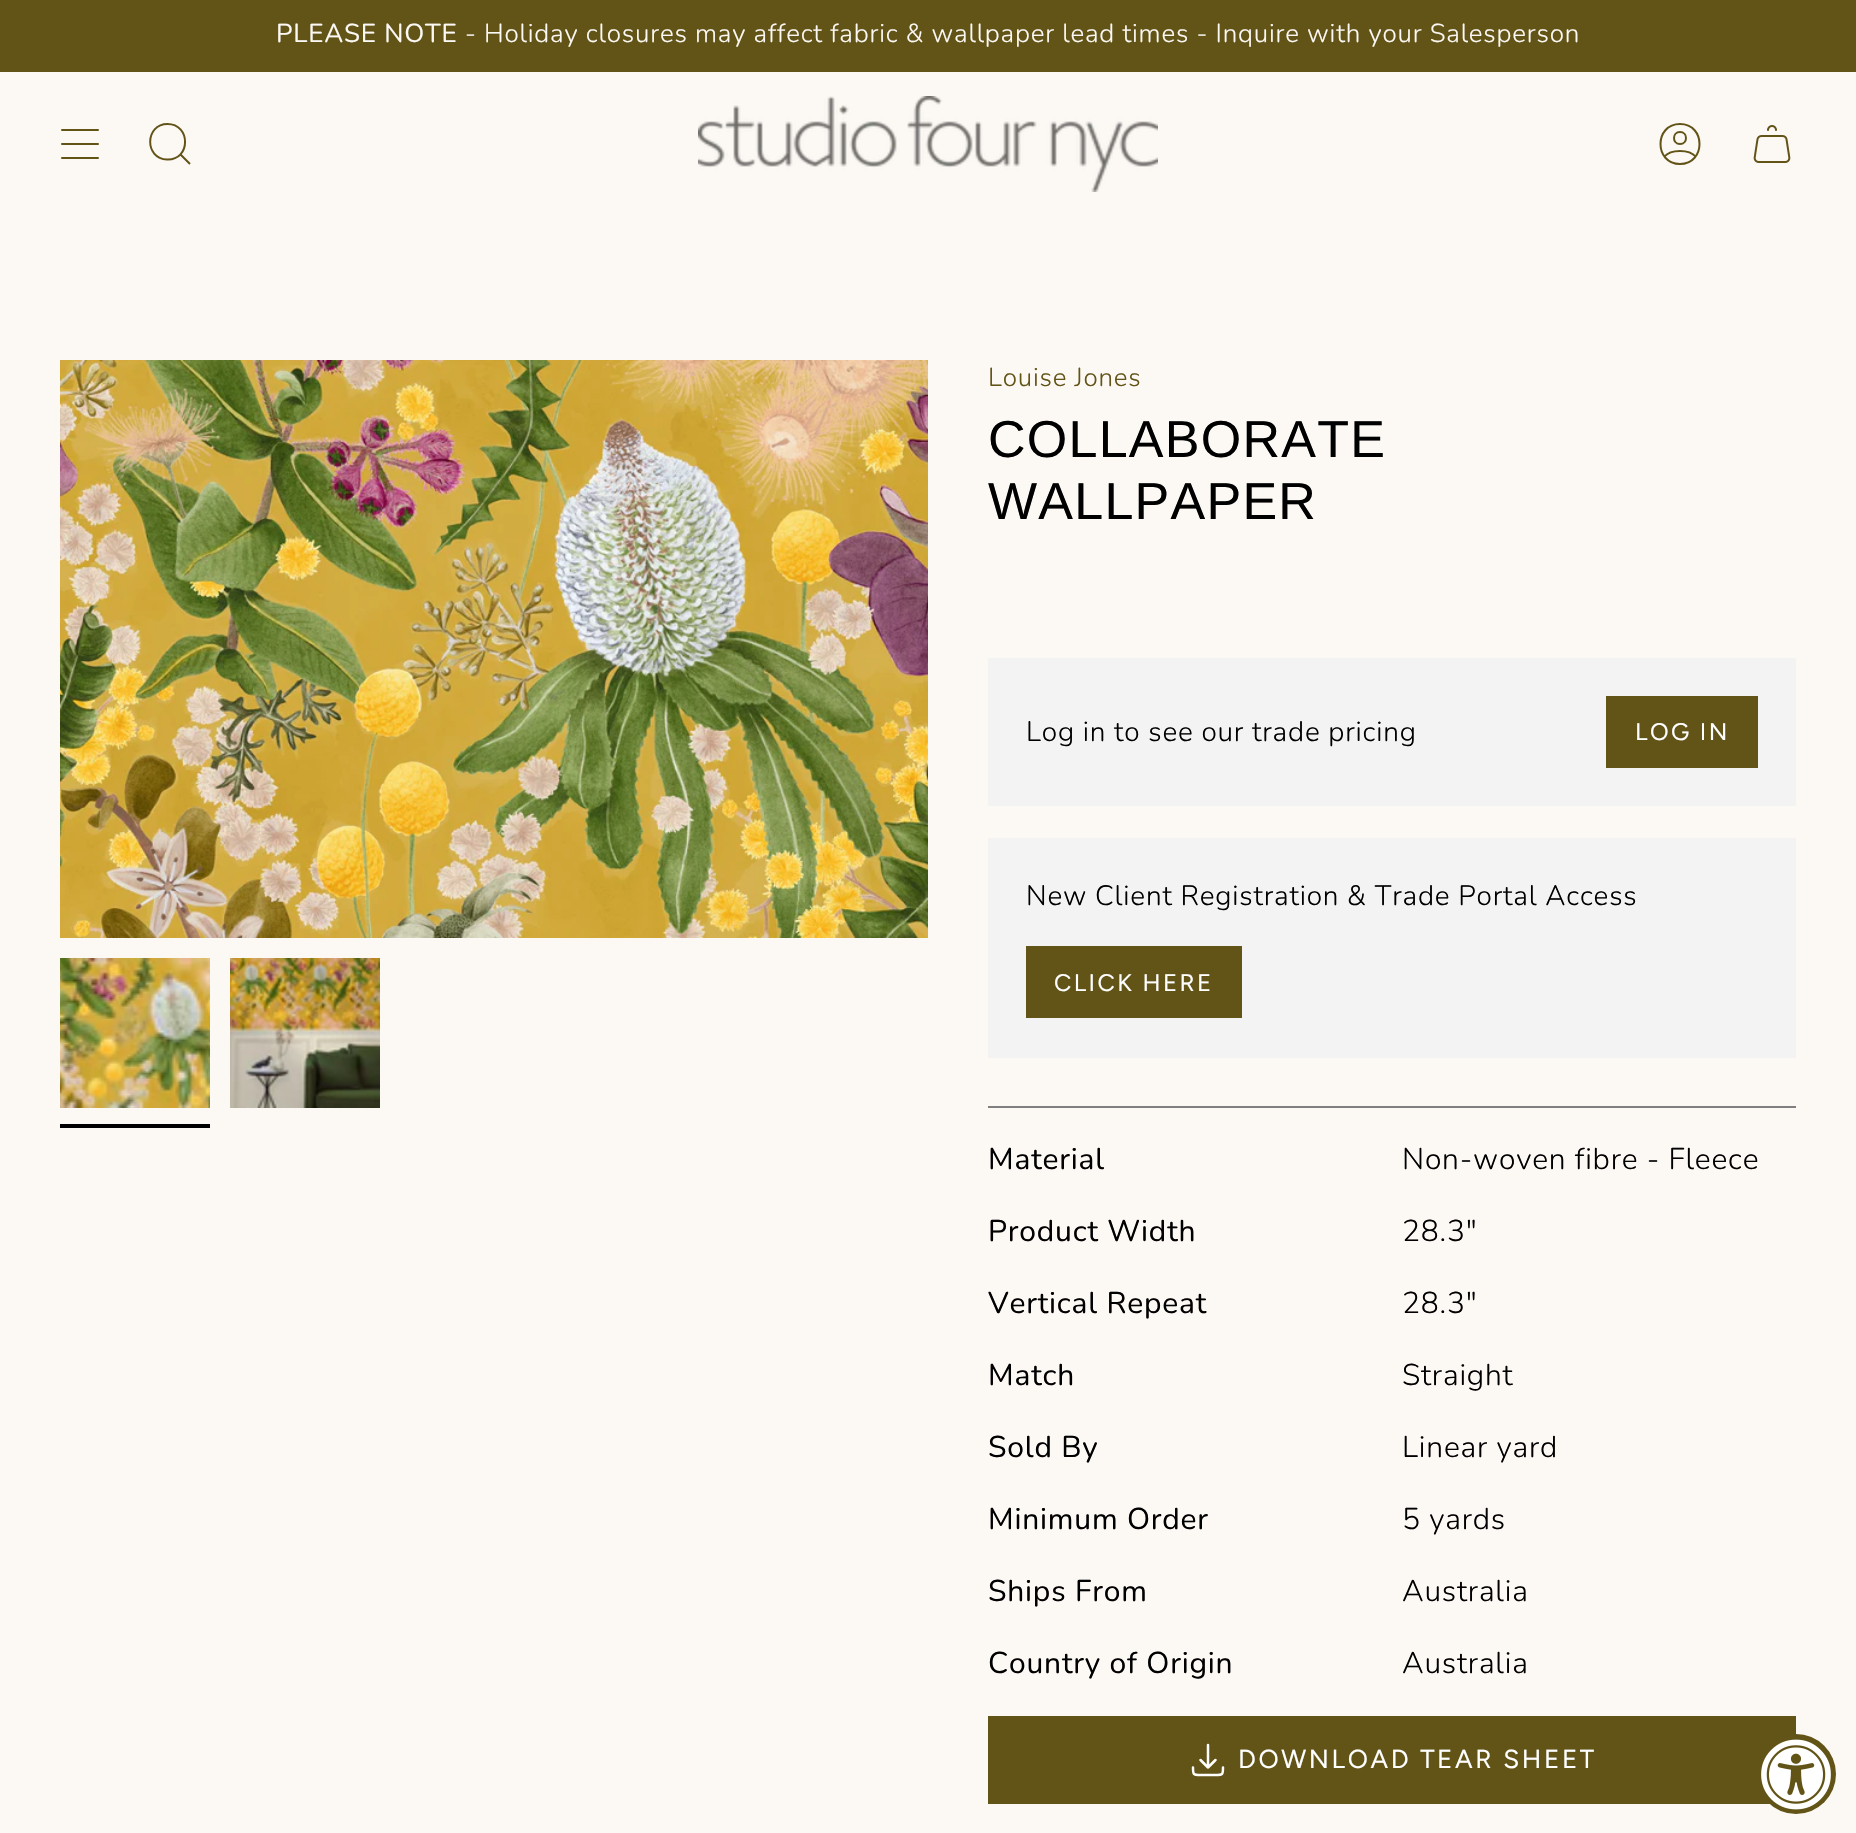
void draw(SkCanvas* canvas) {
    SkPaint paint;
    paint.setAntiAlias(true);
    auto spacedText = [&](const char* s, float x, float y, const SkFont& font, const SkPaint& ink, float letter, float word) {
        std::vector<SkGlyphID> glyphs(font.countText(s, strlen(s), SkTextEncoding::kUTF8));
        std::vector<float> xs(glyphs.size());
        font.textToGlyphs(s, strlen(s), SkTextEncoding::kUTF8, glyphs);
        font.getXPos(glyphs, xs, x);
        float extra = 0;
        for (size_t i = 0; i < glyphs.size(); i++) {
            xs[i] += extra;
            extra += letter + word * (glyphs[i] == font.unicharToGlyph(' '));
        }
        canvas->drawTextBlob(SkTextBlob::MakeFromPosHGlyphs(glyphs, xs, y, font), 0, 0, ink);
    };
    canvas->clear(0xFFFCF9F5);
    paint.setColor(0xFF625317);
    canvas->drawRect(SkRect::MakeXYWH(0, 0, 1856, 72), paint);
    SkFont font1(fontMgr->matchFamilyStyle("Nunito", SkFontStyle::Normal()), 26);
    font1.setSubpixel(true);
    paint.setColor(0xFFFCF9F5);
    spacedText("PLEASE NOTE", 276, 42, font1, paint, 0.8f, 0);
    SkFont font2(fontMgr->matchFamilyStyle("Nunito", SkFontStyle(300, SkFontStyle::kNormal_Width, SkFontStyle::kUpright_Slant)), 26);
    font2.setSubpixel(true);
    spacedText("- Holiday closures may affect fabric & wallpaper lead times - Inquire with your Salesperson", 465, 42, font2, paint, 0.8f, 0);
    paint.setStyle(SkPaint::kStroke_Style);
    paint.setStrokeWidth(2);
    paint.setStrokeCap(SkPaint::kRound_Cap);
    paint.setStrokeJoin(SkPaint::kRound_Join);
    paint.setColor(0xFF625317);
    canvas->drawPath(SkPathBuilder().moveTo(62, 130).lineTo(98, 130).moveTo(62, 144).lineTo(98, 144).moveTo(62, 158).lineTo(98, 158).detach(), paint);
    paint.setStrokeCap(SkPaint::kButt_Cap);
    paint.setStrokeJoin(SkPaint::kMiter_Join);
    canvas->drawPath(SkPathBuilder().moveTo(167.5f, 124).cubicTo(191, 124, 191, 160.5f, 167, 159.5f).cubicTo(144, 158.5f, 145, 124, 167.5f, 124).close().moveTo(180, 154).lineTo(190, 164).detach(), paint);
    canvas->drawImageRect(SkImages::DeferredFromEncodedData(SkData::MakeFromFileName("img1.png")), SkRect::MakeXYWH(698, 96, 460, 96), SkSamplingOptions());
    paint.setStrokeCap(SkPaint::kRound_Cap);
    paint.setStrokeJoin(SkPaint::kRound_Join);
    canvas->drawPath(SkPathBuilder().moveTo(1680, 124).cubicTo(1654, 124, 1654, 164, 1680, 164).cubicTo(1706, 164, 1706, 124, 1680, 124).close().moveTo(1664.5f, 156.5f).cubicTo(1670.5f, 149, 1689.5f, 149, 1695.5f, 156.5f).moveTo(1680, 144).cubicTo(1688, 144, 1688, 132, 1680, 132).cubicTo(1672, 132, 1672, 144, 1680, 144).close().detach(), paint);
    canvas->drawImageRect(SkImages::DeferredFromEncodedData(SkData::MakeFromFileName("img2.png")), SkRect::MakeXYWH(1753, 125, 38, 38), SkSamplingOptions());
    canvas->drawImageRect(SkImages::DeferredFromEncodedData(SkData::MakeFromFileName("img3.png")), SkRect::MakeXYWH(60, 360, 868, 578), SkSamplingOptions());
    canvas->drawImageRect(SkImages::DeferredFromEncodedData(SkData::MakeFromFileName("img4.png")), SkRect::MakeXYWH(60, 958, 150, 150), SkSamplingOptions());
    paint.setStyle(SkPaint::kFill_Style);
    paint.setColor(0xFF000000);
    canvas->drawRect(SkRect::MakeXYWH(60, 1124, 150, 4), paint);
    canvas->drawImageRect(SkImages::DeferredFromEncodedData(SkData::MakeFromFileName("img5.png")), SkRect::MakeXYWH(230, 958, 150, 150), SkSamplingOptions());
    paint.setColor(0xFF625317);
    spacedText("Louise Jones", 988, 386, font2, paint, 0.8f, 0);
    SkFont font3(fontMgr->matchFamilyStyle("Liberation Sans", SkFontStyle::Normal()), 52);
    font3.setSubpixel(true);
    paint.setColor(0xFF000000);
    spacedText("COLLABORATE", 988, 457, font3, paint, 1.25f, 0);
    spacedText("WALLPAPER", 988, 519, font3, paint, 1.25f, 0);
    paint.setColor(0xFFF3F3F3);
    canvas->drawRect(SkRect::MakeXYWH(988, 658, 808, 148), paint);
    SkFont font4(fontMgr->matchFamilyStyle("Nunito", SkFontStyle(300, SkFontStyle::kNormal_Width, SkFontStyle::kUpright_Slant)), 28);
    font4.setSubpixel(true);
    paint.setColor(0xFF000000);
    spacedText("Log in to see our trade pricing", 1026, 741, font4, paint, 0.8f, 0);
    paint.setColor(0xFF625317);
    canvas->drawRect(SkRect::MakeXYWH(1606, 696, 152, 72), paint);
    SkFont font5(fontMgr->matchFamilyStyle("Figtree", SkFontStyle::Normal()), 24);
    font5.setSubpixel(true);
    paint.setColor(0xFFFFFFFF);
    spacedText("LOG IN", 1635, 740, font5, paint, 2.4f, 0);
    paint.setColor(0xFFF3F3F3);
    canvas->drawRect(SkRect::MakeXYWH(988, 838, 808, 220), paint);
    paint.setColor(0xFF000000);
    spacedText("New Client Registration & Trade Portal Access", 1026, 905, font4, paint, 0.8f, 0);
    paint.setColor(0xFF625317);
    canvas->drawRect(SkRect::MakeXYWH(1026, 946, 216, 72), paint);
    paint.setColor(0xFFFFFFFF);
    spacedText("CLICK HERE", 1054, 991, font5, paint, 2.4f, 0);
    paint.setColor(0xFF808080);
    canvas->drawRect(SkRect::MakeXYWH(988, 1106, 808, 2), paint);
    SkFont font6(fontMgr->matchFamilyStyle("Nunito", SkFontStyle::Normal()), 30);
    font6.setSubpixel(true);
    paint.setColor(0xFF000000);
    spacedText("Material", 988, 1169, font6, paint, 0.8f, 0);
    SkFont font7(fontMgr->matchFamilyStyle("Nunito", SkFontStyle(300, SkFontStyle::kNormal_Width, SkFontStyle::kUpright_Slant)), 30);
    font7.setSubpixel(true);
    spacedText("Non-woven fibre - Fleece", 1402, 1169, font7, paint, 0.8f, 0);
    spacedText("Product Width", 988, 1241, font6, paint, 0.8f, 0);
    spacedText("28.3\"", 1402, 1241, font7, paint, 0.8f, 0);
    spacedText("Vertical Repeat", 988, 1313, font6, paint, 0.8f, 0);
    spacedText("28.3\"", 1402, 1313, font7, paint, 0.8f, 0);
    spacedText("Match", 988, 1385, font6, paint, 0.8f, 0);
    spacedText("Straight", 1402, 1385, font7, paint, 0.8f, 0);
    spacedText("Sold By", 988, 1457, font6, paint, 0.8f, 0);
    spacedText("Linear yard", 1402, 1457, font7, paint, 0.8f, 0);
    spacedText("Minimum Order", 988, 1529, font6, paint, 0.8f, 0);
    spacedText("5 yards", 1402, 1529, font7, paint, 0.8f, 0);
    spacedText("Ships From", 988, 1601, font6, paint, 0.8f, 0);
    spacedText("Australia", 1402, 1601, font7, paint, 0.8f, 0);
    spacedText("Country of Origin", 988, 1673, font6, paint, 0.8f, 0);
    spacedText("Australia", 1402, 1673, font7, paint, 0.8f, 0);
    paint.setColor(0xFF625317);
    canvas->drawRect(SkRect::MakeXYWH(988, 1716, 808, 88), paint);
    paint.setStyle(SkPaint::kStroke_Style);
    paint.setStrokeWidth(2.5f);
    paint.setColor(0xFFFFFFFF);
    canvas->drawPath(SkPathBuilder().moveTo(1193, 1767.5f).cubicTo(1193, 1774.5f, 1193, 1775, 1200.5f, 1775).lineTo(1215.5f, 1775).cubicTo(1223, 1775, 1223, 1774.5f, 1223, 1767.5f).moveTo(1215.5f, 1760).lineTo(1208, 1767.5f).moveTo(1208, 1767.5f).lineTo(1200.5f, 1760).moveTo(1208, 1767.5f).lineTo(1208, 1745).detach(), paint);
    SkFont font8(fontMgr->matchFamilyStyle("Figtree", SkFontStyle::Normal()), 26);
    font8.setSubpixel(true);
    paint.setStyle(SkPaint::kFill_Style);
    spacedText("DOWNLOAD TEAR SHEET", 1238, 1768, font8, paint, 2.6f, 0);
    paint.setColor(0xFF625317);
    canvas->drawCircle(1796, 1774, 40, paint);
    canvas->drawImageRect(SkImages::DeferredFromEncodedData(SkData::MakeFromFileName("img6.png")), SkRect::MakeXYWH(1761, 1739, 70, 71), SkSamplingOptions());
}
